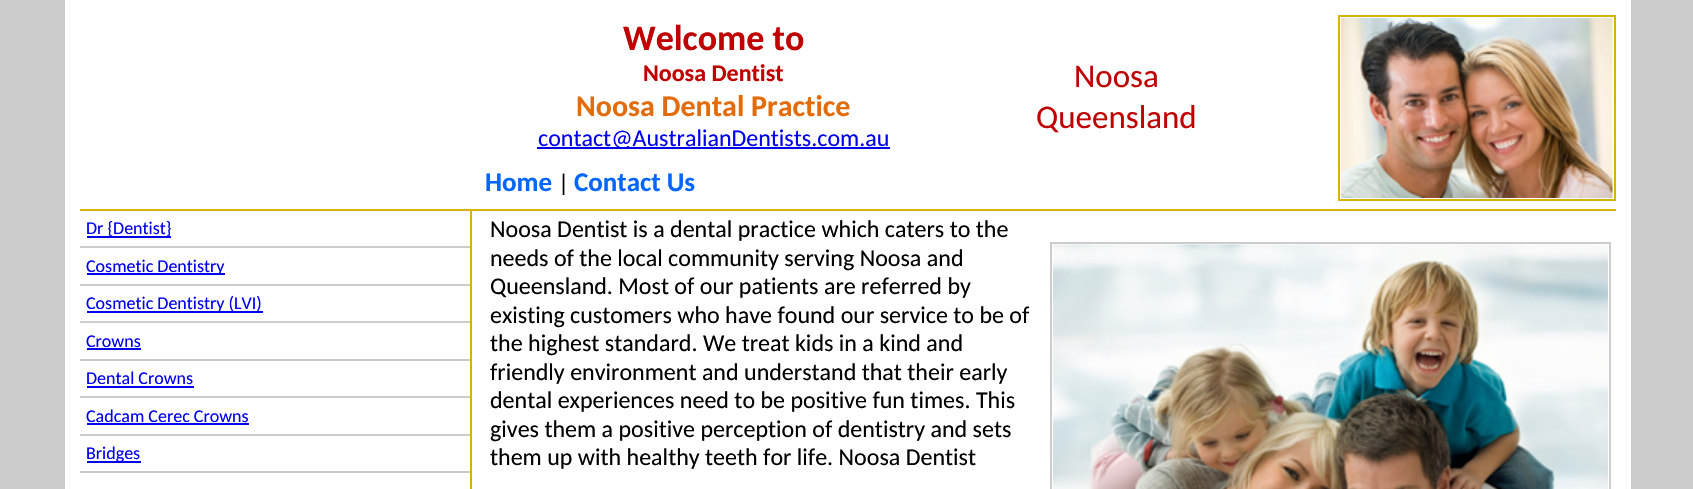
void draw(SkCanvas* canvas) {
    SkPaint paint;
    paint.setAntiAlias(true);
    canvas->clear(0xFFCCCCCC);
    paint.setColor(0xFFFFFFFF);
    canvas->drawRect(SkRect::MakeXYWH(65, 0, 1566, 489), paint);
    paint.setColor(0xFFD9B200);
    canvas->drawRect(SkRect::MakeXYWH(80, 209, 1536, 2), paint);
    SkFont font1(fontMgr->matchFamilyStyle("Carlito", SkFontStyle::Bold()), 36);
    font1.setSubpixel(true);
    paint.setColor(0xFFC00000);
    canvas->drawString("Welcome to", 623, 50, font1, paint);
    SkFont font2(fontMgr->matchFamilyStyle("Carlito", SkFontStyle::Bold()), 24);
    font2.setSubpixel(true);
    canvas->drawString("Noosa Dentist", 643, 81, font2, paint);
    SkFont font3(fontMgr->matchFamilyStyle("Carlito", SkFontStyle::Bold()), 30);
    font3.setSubpixel(true);
    paint.setColor(0xFFE36C0A);
    canvas->drawString("Noosa Dental Practice", 576, 116, font3, paint);
    paint.setColor(0xFF0000EE);
    canvas->drawRect(SkRect::MakeXYWH(537, 147, 353, 2), paint);
    SkFont font4(fontMgr->matchFamilyStyle("Carlito", SkFontStyle::Normal()), 24);
    font4.setSubpixel(true);
    canvas->drawString("contact@AustralianDentists.com.au", 538, 146, font4, paint);
    SkFont font5(fontMgr->matchFamilyStyle("Carlito", SkFontStyle::Bold()), 27);
    font5.setSubpixel(true);
    paint.setColor(0xFF0066FF);
    canvas->drawString("Home", 485, 191, font5, paint);
    paint.setColor(0xFF000000);
    canvas->drawString("|", 558, 191, font4, paint);
    paint.setColor(0xFF0066FF);
    canvas->drawString("Contact Us", 574, 191, font5, paint);
    SkFont font6(fontMgr->matchFamilyStyle("Carlito", SkFontStyle::Normal()), 33);
    font6.setSubpixel(true);
    paint.setColor(0xFFC00000);
    canvas->drawString("Noosa", 1074, 87, font6, paint);
    canvas->drawString("Queensland", 1036, 128, font6, paint);
    paint.setStyle(SkPaint::kStroke_Style);
    paint.setStrokeWidth(2);
    paint.setColor(0xFFD9B200);
    canvas->drawRect(SkRect::MakeXYWH(1339, 16, 276, 184), paint);
    canvas->drawImageRect(SkImages::DeferredFromEncodedData(SkData::MakeFromFileName("img1.png")), SkRect::MakeXYWH(1341, 18, 272, 180), SkSamplingOptions());
    paint.setStyle(SkPaint::kFill_Style);
    canvas->drawRect(SkRect::MakeXYWH(470, 210, 2, 279), paint);
    paint.setColor(0xFFCCCCCC);
    canvas->drawRect(SkRect::MakeXYWH(80, 246, 390, 2), paint);
    paint.setColor(0xFF0000EE);
    canvas->drawRect(SkRect::MakeXYWH(87, 236, 84, 2), paint);
    SkFont font7(fontMgr->matchFamilyStyle("Carlito", SkFontStyle::Normal()), 18);
    font7.setSubpixel(true);
    canvas->drawString("Dr {Dentist}", 86, 234, font7, paint);
    paint.setColor(0xFFCCCCCC);
    canvas->drawRect(SkRect::MakeXYWH(80, 284, 390, 2), paint);
    paint.setColor(0xFF0000EE);
    canvas->drawRect(SkRect::MakeXYWH(87, 273, 138, 2), paint);
    canvas->drawString("Cosmetic Dentistry", 86, 272, font7, paint);
    paint.setColor(0xFFCCCCCC);
    canvas->drawRect(SkRect::MakeXYWH(80, 321, 390, 2), paint);
    paint.setColor(0xFF0000EE);
    canvas->drawRect(SkRect::MakeXYWH(87, 311, 176, 2), paint);
    canvas->drawString("Cosmetic Dentistry (LVI)", 86, 309, font7, paint);
    paint.setColor(0xFFCCCCCC);
    canvas->drawRect(SkRect::MakeXYWH(80, 359, 390, 2), paint);
    paint.setColor(0xFF0000EE);
    canvas->drawString("Crowns", 86, 347, font7, paint);
    canvas->drawRect(SkRect::MakeXYWH(87, 348, 54, 2), paint);
    paint.setColor(0xFFCCCCCC);
    canvas->drawRect(SkRect::MakeXYWH(80, 396, 390, 2), paint);
    paint.setColor(0xFF0000EE);
    canvas->drawString("Dental Crowns", 86, 384, font7, paint);
    canvas->drawRect(SkRect::MakeXYWH(87, 386, 107, 2), paint);
    paint.setColor(0xFFCCCCCC);
    canvas->drawRect(SkRect::MakeXYWH(80, 434, 390, 2), paint);
    paint.setColor(0xFF0000EE);
    canvas->drawString("Cadcam Cerec Crowns", 86, 422, font7, paint);
    canvas->drawRect(SkRect::MakeXYWH(87, 423, 162, 2), paint);
    paint.setColor(0xFFCCCCCC);
    canvas->drawRect(SkRect::MakeXYWH(80, 471, 390, 2), paint);
    paint.setColor(0xFF0000EE);
    canvas->drawRect(SkRect::MakeXYWH(87, 461, 54, 2), paint);
    canvas->drawString("Bridges", 86, 459, font7, paint);
    paint.setColor(0xFF000000);
    canvas->drawString("Noosa Dentist is a dental practice which caters to the", 490, 237, font4, paint);
    canvas->drawString("needs of the local community serving Noosa and", 490, 266, font4, paint);
    canvas->drawString("Queensland. Most of our patients are referred by", 490, 294, font4, paint);
    canvas->drawString("existing customers who have found our service to be of", 490, 323, font4, paint);
    canvas->drawString("the highest standard. We treat kids in a kind and", 490, 351, font4, paint);
    canvas->drawString("friendly environment and understand that their early", 490, 380, font4, paint);
    canvas->drawString("dental experiences need to be positive fun times. This", 490, 408, font4, paint);
    canvas->drawString("gives them a positive perception of dentistry and sets", 490, 437, font4, paint);
    canvas->drawString("them up with healthy teeth for life. Noosa Dentist", 490, 465, font4, paint);
    paint.setStyle(SkPaint::kStroke_Style);
    paint.setColor(0xFFCCCCCC);
    canvas->drawRect(SkRect::MakeXYWH(1051, 243, 559, 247), paint);
    canvas->drawImageRect(SkImages::DeferredFromEncodedData(SkData::MakeFromFileName("img2.png")), SkRect::MakeXYWH(1053, 244, 555, 245), SkSamplingOptions());
}
